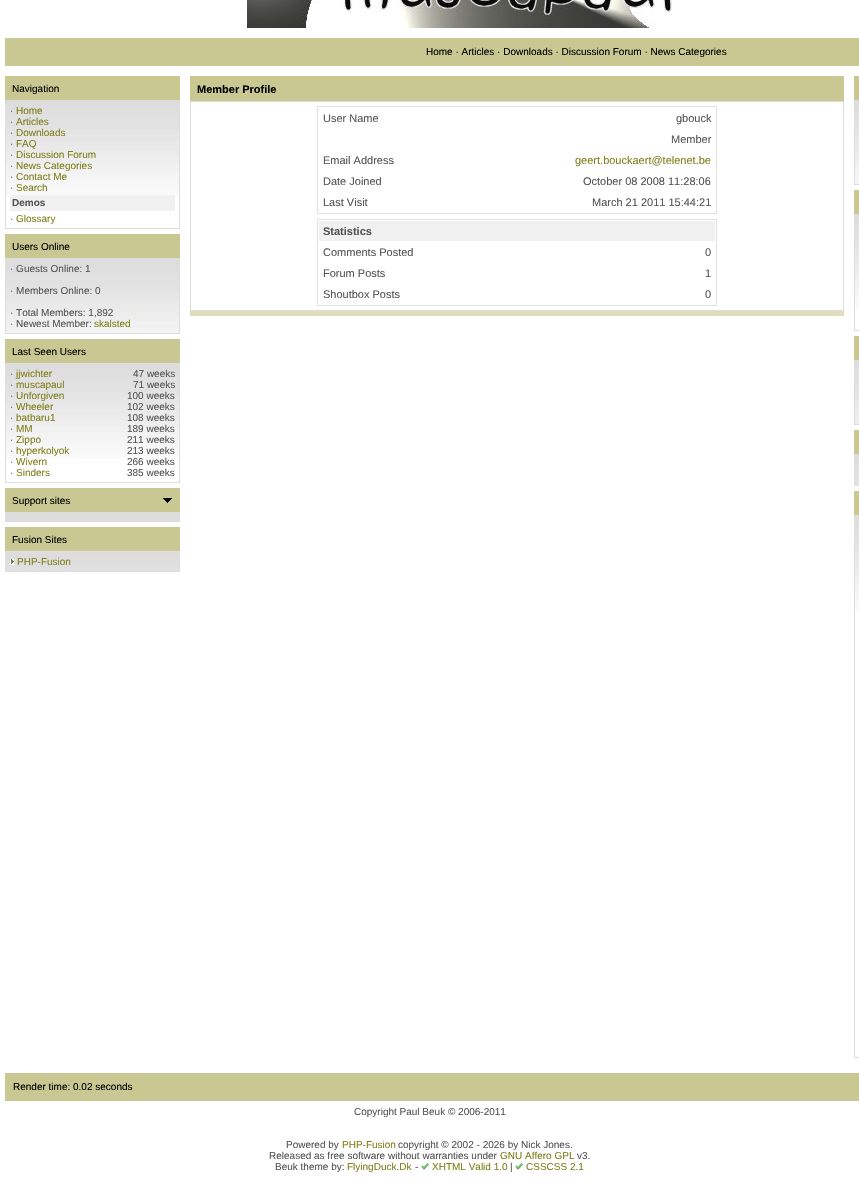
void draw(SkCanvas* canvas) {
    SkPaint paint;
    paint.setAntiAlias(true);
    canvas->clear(0xFFFFFFFF);
    canvas->drawImageRect(SkImages::DeferredFromEncodedData(SkData::MakeFromFileName("img1.png")), SkRect::MakeXYWH(247, 0, 425, 28), SkSamplingOptions());
    paint.setColor(0xFFC9C893);
    canvas->drawRect(SkRect::MakeXYWH(5, 38, 854, 28), paint);
    SkFont font1(fontMgr->matchFamilyStyle("Liberation Sans", SkFontStyle::Normal()), 10);
    font1.setSubpixel(true);
    paint.setColor(0xFF000000);
    canvas->drawString("Home · Articles · Downloads · Discussion Forum · News Categories", 426, 55, font1, paint);
    paint.setColor(0xFFC9C893);
    canvas->drawRect(SkRect::MakeXYWH(5, 76, 175, 24), paint);
    paint.setColor(0xFF000000);
    canvas->drawString("Navigation", 12, 92, font1, paint);
    canvas->drawImageRect(SkImages::DeferredFromEncodedData(SkData::MakeFromFileName("img2.png")), SkRect::MakeXYWH(6, 101, 173, 95), SkSamplingOptions());
    paint.setStyle(SkPaint::kStroke_Style);
    paint.setStrokeWidth(1);
    paint.setColor(0xFFDDDDDD);
    canvas->drawRect(SkRect::MakeXYWH(5.5f, 100.5f, 174, 128), paint);
    paint.setStyle(SkPaint::kFill_Style);
    paint.setColor(0xFF555555);
    canvas->drawString("·", 10, 114, font1, paint);
    paint.setColor(0xFF807F1C);
    canvas->drawString("Home", 16, 114, font1, paint);
    paint.setColor(0xFF555555);
    canvas->drawString("·", 10, 125, font1, paint);
    paint.setColor(0xFF807F1C);
    canvas->drawString("Articles", 16, 125, font1, paint);
    paint.setColor(0xFF555555);
    canvas->drawString("·", 10, 136, font1, paint);
    paint.setColor(0xFF807F1C);
    canvas->drawString("Downloads", 16, 136, font1, paint);
    paint.setColor(0xFF555555);
    canvas->drawString("·", 10, 147, font1, paint);
    paint.setColor(0xFF807F1C);
    canvas->drawString("FAQ", 16, 147, font1, paint);
    paint.setColor(0xFF555555);
    canvas->drawString("·", 10, 158, font1, paint);
    paint.setColor(0xFF807F1C);
    canvas->drawString("Discussion Forum", 16, 158, font1, paint);
    paint.setColor(0xFF555555);
    canvas->drawString("·", 10, 169, font1, paint);
    paint.setColor(0xFF807F1C);
    canvas->drawString("News Categories", 16, 169, font1, paint);
    paint.setColor(0xFF555555);
    canvas->drawString("·", 10, 180, font1, paint);
    paint.setColor(0xFF807F1C);
    canvas->drawString("Contact Me", 16, 180, font1, paint);
    paint.setColor(0xFF555555);
    canvas->drawString("·", 10, 191, font1, paint);
    paint.setColor(0xFF807F1C);
    canvas->drawString("Search", 16, 191, font1, paint);
    paint.setColor(0xFFF1F1F1);
    canvas->drawRect(SkRect::MakeXYWH(10, 195, 165, 16), paint);
    SkFont font2(fontMgr->matchFamilyStyle("Liberation Sans", SkFontStyle::Bold()), 10);
    font2.setSubpixel(true);
    paint.setColor(0xFF555555);
    canvas->drawString("Demos", 12, 206, font2, paint);
    canvas->drawString("·", 10, 222, font1, paint);
    paint.setColor(0xFF807F1C);
    canvas->drawString("Glossary", 16, 222, font1, paint);
    paint.setColor(0xFFC9C893);
    canvas->drawRect(SkRect::MakeXYWH(5, 234, 175, 24), paint);
    paint.setColor(0xFF000000);
    canvas->drawString("Users Online", 12, 250, font1, paint);
    canvas->drawImageRect(SkImages::DeferredFromEncodedData(SkData::MakeFromFileName("img3.png")), SkRect::MakeXYWH(6, 259, 173, 74), SkSamplingOptions());
    paint.setStyle(SkPaint::kStroke_Style);
    paint.setColor(0xFFDDDDDD);
    canvas->drawRect(SkRect::MakeXYWH(5.5f, 258.5f, 174, 75), paint);
    paint.setStyle(SkPaint::kFill_Style);
    paint.setColor(0xFF555555);
    canvas->drawString("· Guests Online: 1", 10, 272, font1, paint);
    canvas->drawString("· Members Online: 0", 10, 294, font1, paint);
    canvas->drawString("· Total Members: 1,892", 10, 316, font1, paint);
    canvas->drawString("· Newest Member:", 10, 327, font1, paint);
    paint.setColor(0xFF807F1C);
    canvas->drawString("skalsted", 94, 327, font1, paint);
    paint.setColor(0xFFC9C893);
    canvas->drawRect(SkRect::MakeXYWH(5, 339, 175, 24), paint);
    paint.setColor(0xFF000000);
    canvas->drawString("Last Seen Users", 12, 355, font1, paint);
    canvas->drawImageRect(SkImages::DeferredFromEncodedData(SkData::MakeFromFileName("img2.png")), SkRect::MakeXYWH(6, 364, 173, 95), SkSamplingOptions());
    paint.setStyle(SkPaint::kStroke_Style);
    paint.setColor(0xFFDDDDDD);
    canvas->drawRect(SkRect::MakeXYWH(5.5f, 363.5f, 174, 119), paint);
    paint.setStyle(SkPaint::kFill_Style);
    paint.setColor(0xFF555555);
    canvas->drawString("·", 10, 377, font1, paint);
    paint.setColor(0xFF807F1C);
    canvas->drawString("jjwichter", 16, 377, font1, paint);
    paint.setColor(0xFF555555);
    canvas->drawString("47 weeks", 133, 377, font1, paint);
    canvas->drawString("·", 10, 388, font1, paint);
    paint.setColor(0xFF807F1C);
    canvas->drawString("muscapaul", 16, 388, font1, paint);
    paint.setColor(0xFF555555);
    canvas->drawString("71 weeks", 133, 388, font1, paint);
    canvas->drawString("·", 10, 399, font1, paint);
    paint.setColor(0xFF807F1C);
    canvas->drawString("Unforgiven", 16, 399, font1, paint);
    paint.setColor(0xFF555555);
    canvas->drawString("100 weeks", 127, 399, font1, paint);
    canvas->drawString("·", 10, 410, font1, paint);
    paint.setColor(0xFF807F1C);
    canvas->drawString("Wheeler", 16, 410, font1, paint);
    paint.setColor(0xFF555555);
    canvas->drawString("102 weeks", 127, 410, font1, paint);
    canvas->drawString("·", 10, 421, font1, paint);
    paint.setColor(0xFF807F1C);
    canvas->drawString("batbaru1", 16, 421, font1, paint);
    paint.setColor(0xFF555555);
    canvas->drawString("108 weeks", 127, 421, font1, paint);
    canvas->drawString("·", 10, 432, font1, paint);
    paint.setColor(0xFF807F1C);
    canvas->drawString("MM", 16, 432, font1, paint);
    paint.setColor(0xFF555555);
    canvas->drawString("189 weeks", 127, 432, font1, paint);
    canvas->drawString("·", 10, 443, font1, paint);
    paint.setColor(0xFF807F1C);
    canvas->drawString("Zippo", 16, 443, font1, paint);
    paint.setColor(0xFF555555);
    canvas->drawString("211 weeks", 127, 443, font1, paint);
    canvas->drawString("·", 10, 454, font1, paint);
    paint.setColor(0xFF807F1C);
    canvas->drawString("hyperkolyok", 16, 454, font1, paint);
    paint.setColor(0xFF555555);
    canvas->drawString("213 weeks", 127, 454, font1, paint);
    canvas->drawString("·", 10, 465, font1, paint);
    paint.setColor(0xFF807F1C);
    canvas->drawString("Wivern", 16, 465, font1, paint);
    paint.setColor(0xFF555555);
    canvas->drawString("266 weeks", 127, 465, font1, paint);
    canvas->drawString("·", 10, 476, font1, paint);
    paint.setColor(0xFF807F1C);
    canvas->drawString("Sinders", 16, 476, font1, paint);
    paint.setColor(0xFF555555);
    canvas->drawString("385 weeks", 127, 476, font1, paint);
    paint.setColor(0xFFC9C893);
    canvas->drawRect(SkRect::MakeXYWH(5, 488, 175, 24), paint);
    paint.setColor(0xFF000000);
    canvas->drawString("Support sites", 12, 504, font1, paint);
    canvas->drawImageRect(SkImages::DeferredFromEncodedData(SkData::MakeFromFileName("img4.png")), SkRect::MakeXYWH(163, 498, 9, 5), SkSamplingOptions());
    paint.setColor(0xFFDDDDDD);
    canvas->drawRect(SkRect::MakeXYWH(5.5f, 512.5f, 174, 9), paint);
    paint.setStyle(SkPaint::kStroke_Style);
    canvas->drawRect(SkRect::MakeXYWH(5.5f, 512.5f, 174, 9), paint);
    paint.setStyle(SkPaint::kFill_Style);
    paint.setColor(0xFFC9C893);
    canvas->drawRect(SkRect::MakeXYWH(5, 527, 175, 24), paint);
    paint.setColor(0xFF000000);
    canvas->drawString("Fusion Sites", 12, 543, font1, paint);
    canvas->drawImageRect(SkImages::DeferredFromEncodedData(SkData::MakeFromFileName("img5.png")), SkRect::MakeXYWH(6, 552, 173, 19), SkSamplingOptions());
    paint.setStyle(SkPaint::kStroke_Style);
    paint.setColor(0xFFDDDDDD);
    canvas->drawRect(SkRect::MakeXYWH(5.5f, 551.5f, 174, 20), paint);
    canvas->drawImageRect(SkImages::DeferredFromEncodedData(SkData::MakeFromFileName("img6.png")), SkRect::MakeXYWH(10, 559, 4, 6), SkSamplingOptions());
    paint.setStyle(SkPaint::kFill_Style);
    paint.setColor(0xFF807F1C);
    canvas->drawString("PHP-Fusion", 17, 565, font1, paint);
    paint.setColor(0xFFC9C893);
    canvas->drawRect(SkRect::MakeXYWH(190, 76, 654, 25), paint);
    SkFont font3(fontMgr->matchFamilyStyle("Liberation Sans", SkFontStyle::Bold()), 11);
    font3.setSubpixel(true);
    paint.setColor(0xFF000000);
    canvas->drawString("Member Profile", 197, 93, font3, paint);
    paint.setStyle(SkPaint::kStroke_Style);
    paint.setColor(0xFFDDDDDD);
    canvas->drawRect(SkRect::MakeXYWH(190.5f, 101.5f, 653, 209), paint);
    paint.setColor(0xFFE1E1E1);
    canvas->drawRect(SkRect::MakeXYWH(317.5f, 106.5f, 399, 107), paint);
    SkFont font4(fontMgr->matchFamilyStyle("Liberation Sans", SkFontStyle::Normal()), 11);
    font4.setSubpixel(true);
    paint.setStyle(SkPaint::kFill_Style);
    paint.setColor(0xFF555555);
    canvas->drawString("User Name", 323, 122, font4, paint);
    canvas->drawString("gbouck", 676, 122, font4, paint);
    canvas->drawString("Member", 671, 143, font4, paint);
    canvas->drawString("Email Address", 323, 164, font4, paint);
    paint.setColor(0xFF807F1C);
    canvas->drawString("geert.bouckaert@telenet.be", 575, 164, font4, paint);
    paint.setColor(0xFF555555);
    canvas->drawString("Date Joined", 323, 185, font4, paint);
    canvas->drawString("October 08 2008 11:28:06", 583, 185, font4, paint);
    canvas->drawString("Last Visit", 323, 206, font4, paint);
    canvas->drawString("March 21 2011 15:44:21", 592, 206, font4, paint);
    paint.setStyle(SkPaint::kStroke_Style);
    paint.setColor(0xFFE1E1E1);
    canvas->drawRect(SkRect::MakeXYWH(317.5f, 219.5f, 399, 86), paint);
    paint.setStyle(SkPaint::kFill_Style);
    paint.setColor(0xFFF1F1F1);
    canvas->drawRect(SkRect::MakeXYWH(319, 221, 396, 20), paint);
    paint.setColor(0xFF555555);
    canvas->drawString("Statistics", 323, 235, font3, paint);
    canvas->drawString("Comments Posted", 323, 256, font4, paint);
    canvas->drawString("0", 705, 256, font4, paint);
    canvas->drawString("Forum Posts", 323, 277, font4, paint);
    canvas->drawString("1", 705, 277, font4, paint);
    canvas->drawString("Shoutbox Posts", 323, 298, font4, paint);
    canvas->drawString("0", 705, 298, font4, paint);
    paint.setColor(0xFFDEDEBB);
    canvas->drawRect(SkRect::MakeXYWH(190, 311, 654, 5), paint);
    paint.setColor(0xFFC9C893);
    canvas->drawRect(SkRect::MakeXYWH(854, 76, 5, 24), paint);
    canvas->drawImageRect(SkImages::DeferredFromEncodedData(SkData::MakeFromFileName("img7.png")), SkRect::MakeXYWH(855, 101, 4, 83), SkSamplingOptions());
    paint.setStyle(SkPaint::kStroke_Style);
    paint.setColor(0xFFDDDDDD);
    canvas->drawRect(SkRect::MakeXYWH(854.5f, 100.5f, 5, 84), paint);
    paint.setStyle(SkPaint::kFill_Style);
    paint.setColor(0xFFC9C893);
    canvas->drawRect(SkRect::MakeXYWH(854, 190, 5, 24), paint);
    canvas->drawImageRect(SkImages::DeferredFromEncodedData(SkData::MakeFromFileName("img8.png")), SkRect::MakeXYWH(855, 215, 4, 95), SkSamplingOptions());
    paint.setStyle(SkPaint::kStroke_Style);
    paint.setColor(0xFFDDDDDD);
    canvas->drawRect(SkRect::MakeXYWH(854.5f, 214.5f, 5, 116), paint);
    paint.setStyle(SkPaint::kFill_Style);
    paint.setColor(0xFFC9C893);
    canvas->drawRect(SkRect::MakeXYWH(854, 336, 5, 24), paint);
    canvas->drawImageRect(SkImages::DeferredFromEncodedData(SkData::MakeFromFileName("img9.png")), SkRect::MakeXYWH(855, 361, 4, 63), SkSamplingOptions());
    paint.setStyle(SkPaint::kStroke_Style);
    paint.setColor(0xFFDDDDDD);
    canvas->drawRect(SkRect::MakeXYWH(854.5f, 360.5f, 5, 64), paint);
    paint.setStyle(SkPaint::kFill_Style);
    paint.setColor(0xFFC9C893);
    canvas->drawRect(SkRect::MakeXYWH(854, 430, 5, 24), paint);
    canvas->drawImageRect(SkImages::DeferredFromEncodedData(SkData::MakeFromFileName("img10.png")), SkRect::MakeXYWH(855, 455, 4, 30), SkSamplingOptions());
    paint.setStyle(SkPaint::kStroke_Style);
    paint.setColor(0xFFDDDDDD);
    canvas->drawRect(SkRect::MakeXYWH(854.5f, 454.5f, 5, 31), paint);
    paint.setStyle(SkPaint::kFill_Style);
    paint.setColor(0xFFC9C893);
    canvas->drawRect(SkRect::MakeXYWH(854, 491, 5, 24), paint);
    canvas->drawImageRect(SkImages::DeferredFromEncodedData(SkData::MakeFromFileName("img8.png")), SkRect::MakeXYWH(855, 516, 4, 95), SkSamplingOptions());
    paint.setStyle(SkPaint::kStroke_Style);
    paint.setColor(0xFFDDDDDD);
    canvas->drawRect(SkRect::MakeXYWH(854.5f, 515.5f, 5, 542), paint);
    paint.setStyle(SkPaint::kFill_Style);
    paint.setColor(0xFFC9C893);
    canvas->drawRect(SkRect::MakeXYWH(5, 1073, 854, 28), paint);
    paint.setColor(0xFF000000);
    canvas->drawString("Render time: 0.02 seconds", 13, 1090, font1, paint);
    paint.setColor(0xFF555555);
    canvas->drawString("Copyright Paul Beuk © 2006-2011", 354, 1115, font1, paint);
    canvas->drawString("Powered by", 286, 1148, font1, paint);
    paint.setColor(0xFF807F1C);
    canvas->drawString("PHP-Fusion", 342, 1148, font1, paint);
    paint.setColor(0xFF555555);
    canvas->drawString("copyright © 2002 - 2026 by Nick Jones.", 398, 1148, font1, paint);
    canvas->drawString("Released as free software without warranties under", 269, 1159, font1, paint);
    paint.setColor(0xFF807F1C);
    canvas->drawString("GNU Affero GPL", 500, 1159, font1, paint);
    paint.setColor(0xFF555555);
    canvas->drawString("v3.", 577, 1159, font1, paint);
    canvas->drawString("Beuk theme by:", 275, 1170, font1, paint);
    paint.setColor(0xFF807F1C);
    canvas->drawString("FlyingDuck.Dk", 347, 1170, font1, paint);
    paint.setColor(0xFF555555);
    canvas->drawString("-", 415, 1170, font1, paint);
    canvas->drawImageRect(SkImages::DeferredFromEncodedData(SkData::MakeFromFileName("img11.png")), SkRect::MakeXYWH(421, 1163, 8, 7), SkSamplingOptions());
    paint.setColor(0xFF807F1C);
    canvas->drawString("XHTML Valid 1.0", 432, 1170, font1, paint);
    paint.setColor(0xFF555555);
    canvas->drawString("|", 510, 1170, font1, paint);
    canvas->drawImageRect(SkImages::DeferredFromEncodedData(SkData::MakeFromFileName("img11.png")), SkRect::MakeXYWH(515, 1163, 8, 7), SkSamplingOptions());
    paint.setColor(0xFF807F1C);
    canvas->drawString("CSSCSS 2.1", 526, 1170, font1, paint);
}
